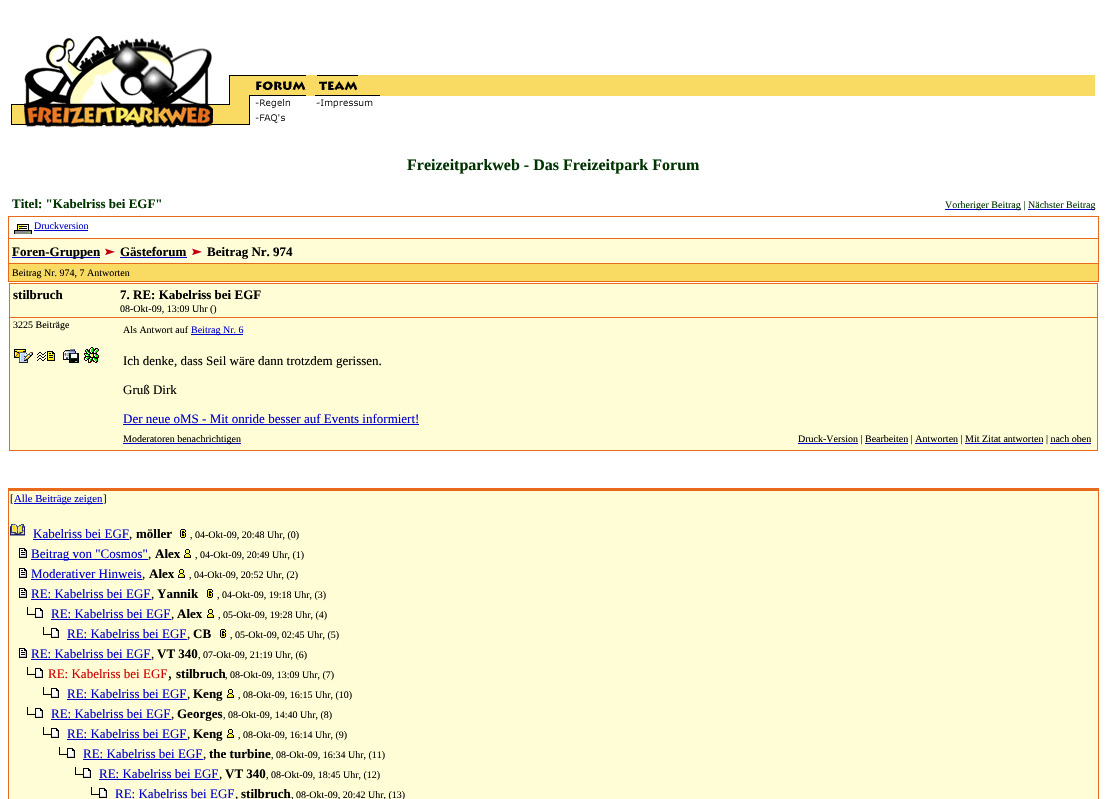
void draw(SkCanvas* canvas) {
    SkPaint paint;
    paint.setAntiAlias(true);
    canvas->clear(0xFFFFFFFF);
    paint.setColor(0xFFF9DB63);
    canvas->drawRect(SkRect::MakeXYWH(254, 75, 841, 21), paint);
    canvas->drawImageRect(SkImages::DeferredFromEncodedData(SkData::MakeFromFileName("img1.png")), SkRect::MakeXYWH(8, 36, 108, 59), SkSamplingOptions());
    canvas->drawImageRect(SkImages::DeferredFromEncodedData(SkData::MakeFromFileName("img2.png")), SkRect::MakeXYWH(116, 38, 111, 57), SkSamplingOptions());
    canvas->drawImageRect(SkImages::DeferredFromEncodedData(SkData::MakeFromFileName("img3.png")), SkRect::MakeXYWH(8, 95, 108, 33), SkSamplingOptions());
    canvas->drawImageRect(SkImages::DeferredFromEncodedData(SkData::MakeFromFileName("img4.png")), SkRect::MakeXYWH(116, 95, 111, 33), SkSamplingOptions());
    canvas->drawImageRect(SkImages::DeferredFromEncodedData(SkData::MakeFromFileName("img5.png")), SkRect::MakeXYWH(227, 75, 27, 50), SkSamplingOptions());
    canvas->drawImageRect(SkImages::DeferredFromEncodedData(SkData::MakeFromFileName("img6.png")), SkRect::MakeXYWH(254, 75, 52, 15), SkSamplingOptions());
    canvas->drawImageRect(SkImages::DeferredFromEncodedData(SkData::MakeFromFileName("img7.png")), SkRect::MakeXYWH(317, 75, 41, 16), SkSamplingOptions());
    canvas->drawImageRect(SkImages::DeferredFromEncodedData(SkData::MakeFromFileName("img8.png")), SkRect::MakeXYWH(254, 95, 52, 13), SkSamplingOptions());
    canvas->drawImageRect(SkImages::DeferredFromEncodedData(SkData::MakeFromFileName("img9.png")), SkRect::MakeXYWH(315, 95, 65, 13), SkSamplingOptions());
    canvas->drawImageRect(SkImages::DeferredFromEncodedData(SkData::MakeFromFileName("img10.png")), SkRect::MakeXYWH(255, 114, 30, 9), SkSamplingOptions());
    SkFont font1(fontMgr->matchFamilyStyle("Liberation Serif", SkFontStyle::Bold()), 16);
    font1.setSubpixel(true);
    paint.setColor(0xFF003300);
    canvas->drawString("Freizeitparkweb - Das Freizeitpark Forum", 407, 170, font1, paint);
    SkFont font2(fontMgr->matchFamilyStyle("Liberation Serif", SkFontStyle::Bold()), 13);
    font2.setSubpixel(true);
    canvas->drawString("Titel: \"Kabelriss bei EGF\"", 12, 208, font2, paint);
    paint.setColor(0xFF0000CC);
    canvas->drawRect(SkRect::MakeXYWH(945, 209, 76, 1), paint);
    SkFont font3(fontMgr->matchFamilyStyle("Liberation Serif", SkFontStyle::Normal()), 10);
    font3.setSubpixel(true);
    paint.setColor(0xFF003300);
    canvas->drawString("Vorheriger Beitrag |", 945, 208, font3, paint);
    paint.setColor(0xFF0000CC);
    canvas->drawRect(SkRect::MakeXYWH(1028, 209, 67, 1), paint);
    paint.setColor(0xFF003300);
    canvas->drawString("Nächster Beitrag", 1028, 208, font3, paint);
    paint.setColor(0xFFE96A1C);
    canvas->drawRect(SkRect::MakeXYWH(8, 216, 1091, 66), paint);
    paint.setColor(0xFFFFFFFF);
    canvas->drawRect(SkRect::MakeXYWH(9, 217, 1089, 21), paint);
    canvas->drawImageRect(SkImages::DeferredFromEncodedData(SkData::MakeFromFileName("img11.png")), SkRect::MakeXYWH(14, 224, 18, 10), SkSamplingOptions());
    paint.setColor(0xFF0000CC);
    canvas->drawString("Druckversion", 34, 229, font3, paint);
    canvas->drawRect(SkRect::MakeXYWH(34, 230, 54, 1), paint);
    paint.setColor(0xFFFFFDD6);
    canvas->drawRect(SkRect::MakeXYWH(9, 239, 1089, 24), paint);
    paint.setColor(0xFF0000CC);
    canvas->drawRect(SkRect::MakeXYWH(12, 257, 88, 1), paint);
    paint.setColor(0xFF000000);
    canvas->drawString("Foren-Gruppen", 12, 256, font2, paint);
    canvas->drawImageRect(SkImages::DeferredFromEncodedData(SkData::MakeFromFileName("img12.png")), SkRect::MakeXYWH(105, 248, 11, 8), SkSamplingOptions());
    canvas->drawString("Gästeforum", 120, 256, font2, paint);
    paint.setColor(0xFF0000CC);
    canvas->drawRect(SkRect::MakeXYWH(120, 257, 67, 1), paint);
    canvas->drawImageRect(SkImages::DeferredFromEncodedData(SkData::MakeFromFileName("img12.png")), SkRect::MakeXYWH(192, 248, 11, 8), SkSamplingOptions());
    paint.setColor(0xFF000000);
    canvas->drawString("Beitrag Nr. 974", 207, 256, font2, paint);
    paint.setColor(0xFFF9DB63);
    canvas->drawRect(SkRect::MakeXYWH(9, 264, 1089, 17), paint);
    paint.setColor(0xFF000000);
    canvas->drawString("Beitrag Nr. 974, 7 Antworten", 12, 276, font3, paint);
    paint.setColor(0xFFE96A1C);
    canvas->drawRect(SkRect::MakeXYWH(9, 283, 1089, 168), paint);
    paint.setColor(0xFFFFFDD6);
    canvas->drawRect(SkRect::MakeXYWH(10, 284, 1087, 33), paint);
    paint.setColor(0xFF000000);
    canvas->drawString("stilbruch", 13, 299, font2, paint);
    paint.setColor(0xFFFFFDD6);
    canvas->drawRect(SkRect::MakeXYWH(10, 318, 1087, 132), paint);
    paint.setColor(0xFF000000);
    canvas->drawString("3225 Beiträge", 13, 328, font3, paint);
    canvas->drawImageRect(SkImages::DeferredFromEncodedData(SkData::MakeFromFileName("img13.png")), SkRect::MakeXYWH(14, 349, 19, 14), SkSamplingOptions());
    canvas->drawImageRect(SkImages::DeferredFromEncodedData(SkData::MakeFromFileName("img14.png")), SkRect::MakeXYWH(37, 351, 18, 10), SkSamplingOptions());
    canvas->drawImageRect(SkImages::DeferredFromEncodedData(SkData::MakeFromFileName("img15.png")), SkRect::MakeXYWH(63, 349, 16, 14), SkSamplingOptions());
    canvas->drawImageRect(SkImages::DeferredFromEncodedData(SkData::MakeFromFileName("img16.png")), SkRect::MakeXYWH(84, 347, 15, 16), SkSamplingOptions());
    canvas->drawString("7. RE: Kabelriss bei EGF", 120, 299, font2, paint);
    canvas->drawString("08-Okt-09, 13:09 Uhr ()", 120, 312, font3, paint);
    canvas->drawString("Als Antwort auf", 123, 333, font3, paint);
    paint.setColor(0xFF0000CC);
    canvas->drawRect(SkRect::MakeXYWH(191, 334, 52, 1), paint);
    canvas->drawString("Beitrag Nr. 6", 191, 333, font3, paint);
    SkFont font4(fontMgr->matchFamilyStyle("Liberation Serif", SkFontStyle::Normal()), 13);
    font4.setSubpixel(true);
    paint.setColor(0xFF000000);
    canvas->drawString("Ich denke, dass Seil wäre dann trotzdem gerissen.", 123, 365, font4, paint);
    canvas->drawString("Gruß Dirk", 123, 394, font4, paint);
    paint.setColor(0xFF0000CC);
    canvas->drawString("Der neue oMS - Mit onride besser auf Events informiert!", 123, 423, font4, paint);
    canvas->drawRect(SkRect::MakeXYWH(123, 424, 296, 1), paint);
    canvas->drawRect(SkRect::MakeXYWH(123, 443, 118, 1), paint);
    paint.setColor(0xFF000000);
    canvas->drawString("Moderatoren benachrichtigen", 123, 442, font3, paint);
    paint.setColor(0xFF0000CC);
    canvas->drawRect(SkRect::MakeXYWH(798, 443, 60, 1), paint);
    paint.setColor(0xFF000000);
    canvas->drawString("Druck-Version | Bearbeiten | Antworten | Mit Zitat antworten | nach oben", 798, 442, font3, paint);
    paint.setColor(0xFF0000CC);
    canvas->drawRect(SkRect::MakeXYWH(865, 443, 43, 1), paint);
    canvas->drawRect(SkRect::MakeXYWH(915, 443, 43, 1), paint);
    canvas->drawRect(SkRect::MakeXYWH(965, 443, 78, 1), paint);
    canvas->drawRect(SkRect::MakeXYWH(1050, 443, 41, 1), paint);
    paint.setColor(0xFFE96A1C);
    canvas->drawRect(SkRect::MakeXYWH(8, 488, 1091, 311), paint);
    paint.setColor(0xFFFFFDD6);
    canvas->drawRect(SkRect::MakeXYWH(9, 491, 1089, 308), paint);
    SkFont font5(fontMgr->matchFamilyStyle("Liberation Serif", SkFontStyle::Normal()), 10.75f);
    font5.setSubpixel(true);
    paint.setColor(0xFF000000);
    canvas->drawString("[", 10, 502, font5, paint);
    paint.setColor(0xFF0000CC);
    canvas->drawRect(SkRect::MakeXYWH(14, 503, 89, 1), paint);
    canvas->drawString("Alle Beiträge zeigen", 14, 502, font5, paint);
    paint.setColor(0xFF000000);
    canvas->drawString("]", 103, 502, font5, paint);
    canvas->drawImageRect(SkImages::DeferredFromEncodedData(SkData::MakeFromFileName("img17.png")), SkRect::MakeXYWH(10, 524, 15, 12), SkSamplingOptions());
    paint.setColor(0xFF0000CC);
    canvas->drawString("Kabelriss bei EGF", 33, 538, font4, paint);
    paint.setColor(0xFF000000);
    canvas->drawString(",", 129, 538, font4, paint);
    paint.setColor(0xFF0000CC);
    canvas->drawRect(SkRect::MakeXYWH(33, 539, 96, 1), paint);
    paint.setColor(0xFF000000);
    canvas->drawString("möller", 136, 538, font2, paint);
    canvas->drawImageRect(SkImages::DeferredFromEncodedData(SkData::MakeFromFileName("img18.png")), SkRect::MakeXYWH(180, 529, 6, 9), SkSamplingOptions());
    canvas->drawString(", 04-Okt-09, 20:48 Uhr, (0)", 190, 538, font3, paint);
    canvas->drawImageRect(SkImages::DeferredFromEncodedData(SkData::MakeFromFileName("img19.png")), SkRect::MakeXYWH(19, 548, 8, 10), SkSamplingOptions());
    paint.setColor(0xFF0000CC);
    canvas->drawRect(SkRect::MakeXYWH(31, 559, 117, 1), paint);
    canvas->drawString("Beitrag von \"Cosmos\"", 31, 558, font4, paint);
    paint.setColor(0xFF000000);
    canvas->drawString(",", 148, 558, font4, paint);
    canvas->drawString("Alex", 155, 558, font2, paint);
    canvas->drawImageRect(SkImages::DeferredFromEncodedData(SkData::MakeFromFileName("img20.png")), SkRect::MakeXYWH(184, 549, 7, 9), SkSamplingOptions());
    canvas->drawString(", 04-Okt-09, 20:49 Uhr, (1)", 195, 558, font3, paint);
    canvas->drawImageRect(SkImages::DeferredFromEncodedData(SkData::MakeFromFileName("img19.png")), SkRect::MakeXYWH(19, 568, 8, 10), SkSamplingOptions());
    paint.setColor(0xFF0000CC);
    canvas->drawString("Moderativer Hinweis", 31, 578, font4, paint);
    paint.setColor(0xFF000000);
    canvas->drawString(",", 142, 578, font4, paint);
    paint.setColor(0xFF0000CC);
    canvas->drawRect(SkRect::MakeXYWH(31, 579, 111, 1), paint);
    paint.setColor(0xFF000000);
    canvas->drawString("Alex", 149, 578, font2, paint);
    canvas->drawImageRect(SkImages::DeferredFromEncodedData(SkData::MakeFromFileName("img20.png")), SkRect::MakeXYWH(178, 569, 7, 9), SkSamplingOptions());
    canvas->drawString(", 04-Okt-09, 20:52 Uhr, (2)", 189, 578, font3, paint);
    canvas->drawImageRect(SkImages::DeferredFromEncodedData(SkData::MakeFromFileName("img19.png")), SkRect::MakeXYWH(19, 588, 8, 10), SkSamplingOptions());
    paint.setColor(0xFF0000CC);
    canvas->drawString("RE: Kabelriss bei EGF", 31, 598, font4, paint);
    paint.setColor(0xFF000000);
    canvas->drawString(",", 151, 598, font4, paint);
    paint.setColor(0xFF0000CC);
    canvas->drawRect(SkRect::MakeXYWH(31, 599, 120, 1), paint);
    paint.setColor(0xFF000000);
    canvas->drawString("Yannik", 157, 598, font2, paint);
    canvas->drawImageRect(SkImages::DeferredFromEncodedData(SkData::MakeFromFileName("img18.png")), SkRect::MakeXYWH(207, 589, 6, 9), SkSamplingOptions());
    canvas->drawString(", 04-Okt-09, 19:18 Uhr, (3)", 217, 598, font3, paint);
    canvas->drawImageRect(SkImages::DeferredFromEncodedData(SkData::MakeFromFileName("img21.png")), SkRect::MakeXYWH(27, 607, 16, 11), SkSamplingOptions());
    paint.setColor(0xFF0000CC);
    canvas->drawString("RE: Kabelriss bei EGF", 51, 618, font4, paint);
    paint.setColor(0xFF000000);
    canvas->drawString(",", 171, 618, font4, paint);
    paint.setColor(0xFF0000CC);
    canvas->drawRect(SkRect::MakeXYWH(51, 619, 120, 1), paint);
    paint.setColor(0xFF000000);
    canvas->drawString("Alex", 177, 618, font2, paint);
    canvas->drawImageRect(SkImages::DeferredFromEncodedData(SkData::MakeFromFileName("img20.png")), SkRect::MakeXYWH(207, 609, 7, 9), SkSamplingOptions());
    canvas->drawString(", 05-Okt-09, 19:28 Uhr, (4)", 218, 618, font3, paint);
    canvas->drawImageRect(SkImages::DeferredFromEncodedData(SkData::MakeFromFileName("img21.png")), SkRect::MakeXYWH(43, 627, 16, 11), SkSamplingOptions());
    paint.setColor(0xFF0000CC);
    canvas->drawString("RE: Kabelriss bei EGF", 67, 638, font4, paint);
    paint.setColor(0xFF000000);
    canvas->drawString(",", 187, 638, font4, paint);
    paint.setColor(0xFF0000CC);
    canvas->drawRect(SkRect::MakeXYWH(67, 639, 120, 1), paint);
    paint.setColor(0xFF000000);
    canvas->drawString("CB", 193, 638, font2, paint);
    canvas->drawImageRect(SkImages::DeferredFromEncodedData(SkData::MakeFromFileName("img18.png")), SkRect::MakeXYWH(220, 629, 6, 9), SkSamplingOptions());
    canvas->drawString(", 05-Okt-09, 02:45 Uhr, (5)", 230, 638, font3, paint);
    canvas->drawImageRect(SkImages::DeferredFromEncodedData(SkData::MakeFromFileName("img19.png")), SkRect::MakeXYWH(19, 648, 8, 10), SkSamplingOptions());
    paint.setColor(0xFF0000CC);
    canvas->drawString("RE: Kabelriss bei EGF", 31, 658, font4, paint);
    paint.setColor(0xFF000000);
    canvas->drawString(",", 151, 658, font4, paint);
    paint.setColor(0xFF0000CC);
    canvas->drawRect(SkRect::MakeXYWH(31, 659, 120, 1), paint);
    paint.setColor(0xFF000000);
    canvas->drawString("VT 340", 157, 658, font2, paint);
    canvas->drawString(", 07-Okt-09, 21:19 Uhr, (6)", 198, 658, font3, paint);
    canvas->drawImageRect(SkImages::DeferredFromEncodedData(SkData::MakeFromFileName("img21.png")), SkRect::MakeXYWH(27, 667, 16, 11), SkSamplingOptions());
    paint.setColor(0xFFCC0000);
    canvas->drawString("RE: Kabelriss bei EGF", 48, 678, font4, paint);
    SkFont font6(fontMgr->matchFamilyStyle("Liberation Serif", SkFontStyle::Normal()), 16);
    font6.setSubpixel(true);
    paint.setColor(0xFF000000);
    canvas->drawString(",", 168, 678, font6, paint);
    canvas->drawString("stilbruch", 176, 678, font2, paint);
    canvas->drawString(", 08-Okt-09, 13:09 Uhr, (7)", 225, 678, font3, paint);
    canvas->drawImageRect(SkImages::DeferredFromEncodedData(SkData::MakeFromFileName("img21.png")), SkRect::MakeXYWH(43, 687, 16, 11), SkSamplingOptions());
    paint.setColor(0xFF0000CC);
    canvas->drawString("RE: Kabelriss bei EGF", 67, 698, font4, paint);
    paint.setColor(0xFF000000);
    canvas->drawString(",", 187, 698, font4, paint);
    paint.setColor(0xFF0000CC);
    canvas->drawRect(SkRect::MakeXYWH(67, 699, 120, 1), paint);
    paint.setColor(0xFF000000);
    canvas->drawString("Keng", 193, 698, font2, paint);
    canvas->drawImageRect(SkImages::DeferredFromEncodedData(SkData::MakeFromFileName("img20.png")), SkRect::MakeXYWH(227, 689, 7, 9), SkSamplingOptions());
    canvas->drawString(", 08-Okt-09, 16:15 Uhr, (10)", 238, 698, font3, paint);
    canvas->drawImageRect(SkImages::DeferredFromEncodedData(SkData::MakeFromFileName("img21.png")), SkRect::MakeXYWH(27, 707, 16, 11), SkSamplingOptions());
    paint.setColor(0xFF0000CC);
    canvas->drawString("RE: Kabelriss bei EGF", 51, 718, font4, paint);
    paint.setColor(0xFF000000);
    canvas->drawString(",", 171, 718, font4, paint);
    paint.setColor(0xFF0000CC);
    canvas->drawRect(SkRect::MakeXYWH(51, 719, 120, 1), paint);
    paint.setColor(0xFF000000);
    canvas->drawString("Georges", 177, 718, font2, paint);
    canvas->drawString(", 08-Okt-09, 14:40 Uhr, (8)", 223, 718, font3, paint);
    canvas->drawImageRect(SkImages::DeferredFromEncodedData(SkData::MakeFromFileName("img21.png")), SkRect::MakeXYWH(43, 727, 16, 11), SkSamplingOptions());
    paint.setColor(0xFF0000CC);
    canvas->drawString("RE: Kabelriss bei EGF", 67, 738, font4, paint);
    paint.setColor(0xFF000000);
    canvas->drawString(",", 187, 738, font4, paint);
    paint.setColor(0xFF0000CC);
    canvas->drawRect(SkRect::MakeXYWH(67, 739, 120, 1), paint);
    paint.setColor(0xFF000000);
    canvas->drawString("Keng", 193, 738, font2, paint);
    canvas->drawImageRect(SkImages::DeferredFromEncodedData(SkData::MakeFromFileName("img20.png")), SkRect::MakeXYWH(227, 729, 7, 9), SkSamplingOptions());
    canvas->drawString(", 08-Okt-09, 16:14 Uhr, (9)", 238, 738, font3, paint);
    canvas->drawImageRect(SkImages::DeferredFromEncodedData(SkData::MakeFromFileName("img21.png")), SkRect::MakeXYWH(59, 747, 16, 11), SkSamplingOptions());
    paint.setColor(0xFF0000CC);
    canvas->drawString("RE: Kabelriss bei EGF", 83, 758, font4, paint);
    paint.setColor(0xFF000000);
    canvas->drawString(",", 203, 758, font4, paint);
    paint.setColor(0xFF0000CC);
    canvas->drawRect(SkRect::MakeXYWH(83, 759, 120, 1), paint);
    paint.setColor(0xFF000000);
    canvas->drawString("the turbine", 209, 758, font2, paint);
    canvas->drawString(", 08-Okt-09, 16:34 Uhr, (11)", 271, 758, font3, paint);
    canvas->drawImageRect(SkImages::DeferredFromEncodedData(SkData::MakeFromFileName("img21.png")), SkRect::MakeXYWH(75, 767, 16, 11), SkSamplingOptions());
    paint.setColor(0xFF0000CC);
    canvas->drawString("RE: Kabelriss bei EGF", 99, 778, font4, paint);
    paint.setColor(0xFF000000);
    canvas->drawString(",", 219, 778, font4, paint);
    paint.setColor(0xFF0000CC);
    canvas->drawRect(SkRect::MakeXYWH(99, 779, 120, 1), paint);
    paint.setColor(0xFF000000);
    canvas->drawString("VT 340", 225, 778, font2, paint);
    canvas->drawString(", 08-Okt-09, 18:45 Uhr, (12)", 266, 778, font3, paint);
    canvas->drawImageRect(SkImages::DeferredFromEncodedData(SkData::MakeFromFileName("img21.png")), SkRect::MakeXYWH(91, 787, 16, 11), SkSamplingOptions());
    paint.setColor(0xFF0000CC);
    canvas->drawString("RE: Kabelriss bei EGF", 115, 798, font4, paint);
    paint.setColor(0xFF000000);
    canvas->drawString(",", 235, 798, font4, paint);
    canvas->drawString("stilbruch", 241, 798, font2, paint);
    canvas->drawString(", 08-Okt-09, 20:42 Uhr, (13)", 291, 798, font3, paint);
}
